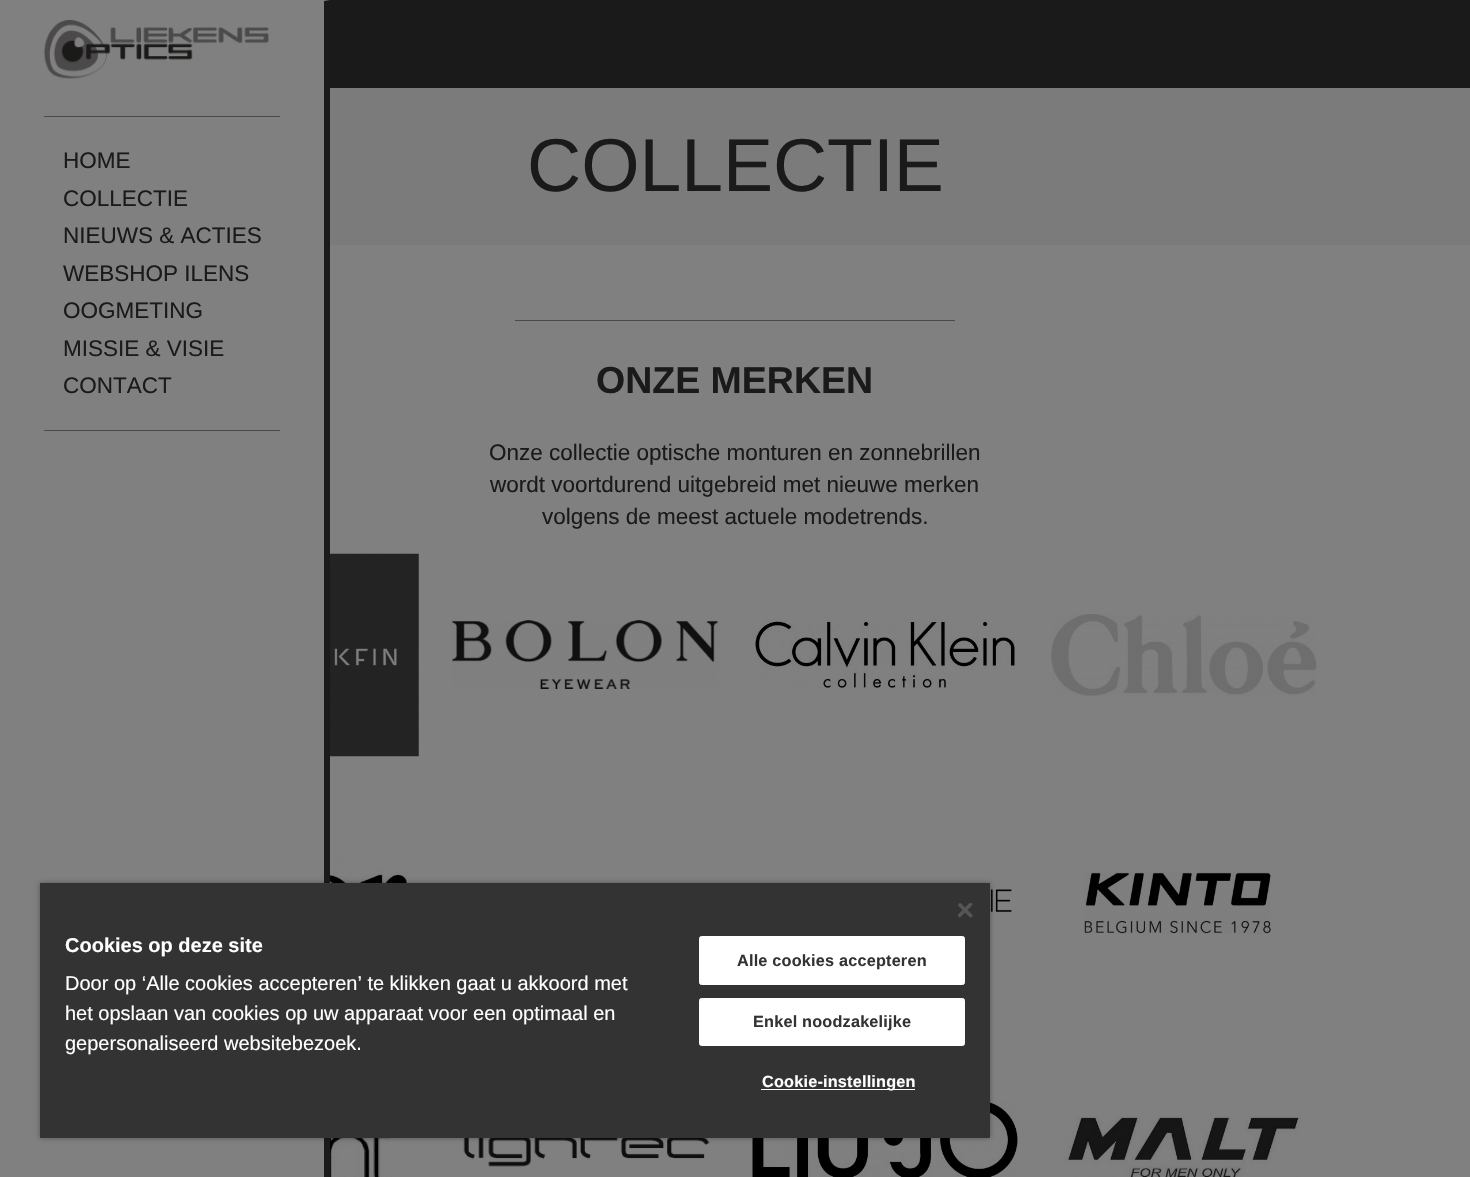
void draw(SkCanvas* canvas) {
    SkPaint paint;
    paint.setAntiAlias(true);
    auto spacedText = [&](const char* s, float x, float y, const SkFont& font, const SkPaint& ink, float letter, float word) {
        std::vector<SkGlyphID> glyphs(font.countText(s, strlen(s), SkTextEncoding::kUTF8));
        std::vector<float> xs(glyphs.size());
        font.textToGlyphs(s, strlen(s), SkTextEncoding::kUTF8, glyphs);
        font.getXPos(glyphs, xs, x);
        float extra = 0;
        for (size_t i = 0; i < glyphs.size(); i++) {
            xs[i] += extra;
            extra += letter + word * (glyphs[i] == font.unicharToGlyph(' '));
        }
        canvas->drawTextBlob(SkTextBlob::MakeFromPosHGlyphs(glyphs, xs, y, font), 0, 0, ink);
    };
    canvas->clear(0xFF808080);
    paint.setColor(0xFF1A1A1A);
    canvas->drawRect(SkRect::MakeXYWH(330, 0, 1140, 88), paint);
    canvas->drawPath(SkPathBuilder().moveTo(330, 0).lineTo(330, 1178).lineTo(324, 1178).lineTo(324, 1).close().detach(), paint);
    canvas->drawImageRect(SkImages::DeferredFromEncodedData(SkData::MakeFromFileName("img1.png")), SkRect::MakeXYWH(43, 20, 226, 59), SkSamplingOptions());
    paint.setColor(0xFF4B4949);
    canvas->drawRect(SkRect::MakeXYWH(44, 116, 236, 1), paint);
    canvas->drawRect(SkRect::MakeXYWH(44, 430, 236, 1), paint);
    SkFont font1(fontMgr->matchFamilyStyle("Liberation Sans", SkFontStyle::Normal()), 22.5f);
    font1.setSubpixel(true);
    paint.setColor(0xFF1A1A1A);
    canvas->drawString("HOME", 63, 168, font1, paint);
    canvas->drawString("COLLECTIE", 63, 206, font1, paint);
    canvas->drawString("NIEUWS & ACTIES", 63, 243, font1, paint);
    canvas->drawString("WEBSHOP ILENS", 63, 281, font1, paint);
    canvas->drawString("OOGMETING", 63, 318, font1, paint);
    canvas->drawString("MISSIE & VISIE", 63, 356, font1, paint);
    canvas->drawString("CONTACT", 63, 393, font1, paint);
    paint.setColor(0xFF7B7B7B);
    canvas->drawRect(SkRect::MakeXYWH(330, 88, 1140, 157), paint);
    SkFont font2(fontMgr->matchFamilyStyle("Liberation Sans", SkFontStyle::Normal()), 75);
    font2.setSubpixel(true);
    paint.setColor(0xFF1A1A1A);
    canvas->drawString("COLLECTIE", 527, 191, font2, paint);
    paint.setColor(0xFF4B4949);
    canvas->drawRect(SkRect::MakeXYWH(515, 320, 440, 1), paint);
    SkFont font3(fontMgr->matchFamilyStyle("Liberation Sans", SkFontStyle::Bold()), 37.5f);
    font3.setSubpixel(true);
    paint.setColor(0xFF1A1A1A);
    canvas->drawString("ONZE MERKEN", 596, 393, font3, paint);
    canvas->drawString("Onze collectie optische monturen en zonnebrillen", 489, 460, font1, paint);
    canvas->drawString("wordt voortdurend uitgebreid met nieuwe merken", 490, 492, font1, paint);
    canvas->drawString("volgens de meest actuele modetrends.", 542, 524, font1, paint);
    canvas->drawImageRect(SkImages::DeferredFromEncodedData(SkData::MakeFromFileName("img2.png")), SkRect::MakeXYWH(330, 553, 89, 204), SkSamplingOptions());
    canvas->drawImageRect(SkImages::DeferredFromEncodedData(SkData::MakeFromFileName("img3.png")), SkRect::MakeXYWH(452, 620, 266, 69), SkSamplingOptions());
    canvas->drawImageRect(SkImages::DeferredFromEncodedData(SkData::MakeFromFileName("img4.png")), SkRect::MakeXYWH(755, 619, 260, 69), SkSamplingOptions());
    canvas->drawImageRect(SkImages::DeferredFromEncodedData(SkData::MakeFromFileName("img5.png")), SkRect::MakeXYWH(1051, 614, 266, 82), SkSamplingOptions());
    canvas->drawImageRect(SkImages::DeferredFromEncodedData(SkData::MakeFromFileName("img6.png")), SkRect::MakeXYWH(330, 840, 77, 43), SkSamplingOptions());
    canvas->drawImageRect(SkImages::DeferredFromEncodedData(SkData::MakeFromFileName("img7.png")), SkRect::MakeXYWH(990, 889, 22, 23), SkSamplingOptions());
    canvas->drawImageRect(SkImages::DeferredFromEncodedData(SkData::MakeFromFileName("img8.png")), SkRect::MakeXYWH(1084, 872, 187, 62), SkSamplingOptions());
    canvas->drawImageRect(SkImages::DeferredFromEncodedData(SkData::MakeFromFileName("img9.png")), SkRect::MakeXYWH(330, 1138, 63, 39), SkSamplingOptions());
    canvas->drawImageRect(SkImages::DeferredFromEncodedData(SkData::MakeFromFileName("img10.png")), SkRect::MakeXYWH(463, 1138, 247, 29), SkSamplingOptions());
    canvas->drawImageRect(SkImages::DeferredFromEncodedData(SkData::MakeFromFileName("img11.png")), SkRect::MakeXYWH(752, 1098, 266, 79), SkSamplingOptions());
    canvas->drawImageRect(SkImages::DeferredFromEncodedData(SkData::MakeFromFileName("img12.png")), SkRect::MakeXYWH(1065, 1116, 236, 61), SkSamplingOptions());
    paint.setColor(0x59000000);
    paint.setMaskFilter(SkMaskFilter::MakeBlur(kNormal_SkBlurStyle, 2.5f));
    canvas->drawRect(SkRect::MakeXYWH(40, 883, 950, 255), paint);
    paint.setMaskFilter(nullptr);
    paint.setColor(0xFF333333);
    canvas->drawRect(SkRect::MakeXYWH(40, 883, 950, 255), paint);
    canvas->drawImageRect(SkImages::DeferredFromEncodedData(SkData::MakeFromFileName("img13.png")), SkRect::MakeXYWH(958, 903, 15, 15), SkSamplingOptions());
    SkFont font4(fontMgr->matchFamilyStyle("Liberation Sans", SkFontStyle::Bold()), 20);
    font4.setSubpixel(true);
    paint.setColor(0xFFFFFFFF);
    canvas->drawString("Cookies op deze site", 65, 952, font4, paint);
    SkFont font5(fontMgr->matchFamilyStyle("Liberation Sans", SkFontStyle::Normal()), 20);
    font5.setSubpixel(true);
    canvas->drawString("Door op ‘Alle cookies accepteren’ te klikken gaat u akkoord met", 65, 990, font5, paint);
    canvas->drawString("het opslaan van cookies op uw apparaat voor een optimaal en", 65, 1020, font5, paint);
    canvas->drawString("gepersonaliseerd websitebezoek.", 65, 1050, font5, paint);
    canvas->drawRoundRect(SkRect::MakeXYWH(699.5f, 936.5f, 265, 48), 2, 2, paint);
    paint.setStyle(SkPaint::kStroke_Style);
    paint.setStrokeWidth(1);
    canvas->drawRoundRect(SkRect::MakeXYWH(699.5f, 936.5f, 265, 48), 2, 2, paint);
    SkFont font6(fontMgr->matchFamilyStyle("Liberation Sans", SkFontStyle::Bold()), 16.25f);
    font6.setSubpixel(true);
    paint.setStyle(SkPaint::kFill_Style);
    paint.setColor(0xFF333333);
    spacedText("Alle cookies accepteren", 737, 966, font6, paint, 0.2f, 0);
    paint.setColor(0xFFFFFFFF);
    canvas->drawRoundRect(SkRect::MakeXYWH(699.5f, 998.5f, 265, 47), 2, 2, paint);
    paint.setStyle(SkPaint::kStroke_Style);
    canvas->drawRoundRect(SkRect::MakeXYWH(699.5f, 998.5f, 265, 47), 2, 2, paint);
    paint.setStyle(SkPaint::kFill_Style);
    paint.setColor(0xFF333333);
    spacedText("Enkel noodzakelijke", 753, 1027, font6, paint, 0.2f, 0);
    paint.setColor(0xFFFFFFFF);
    canvas->drawRect(SkRect::MakeXYWH(761, 1089, 154, 1), paint);
    spacedText("Cookie-instellingen", 762, 1087, font6, paint, 0.2f, 0);
}
